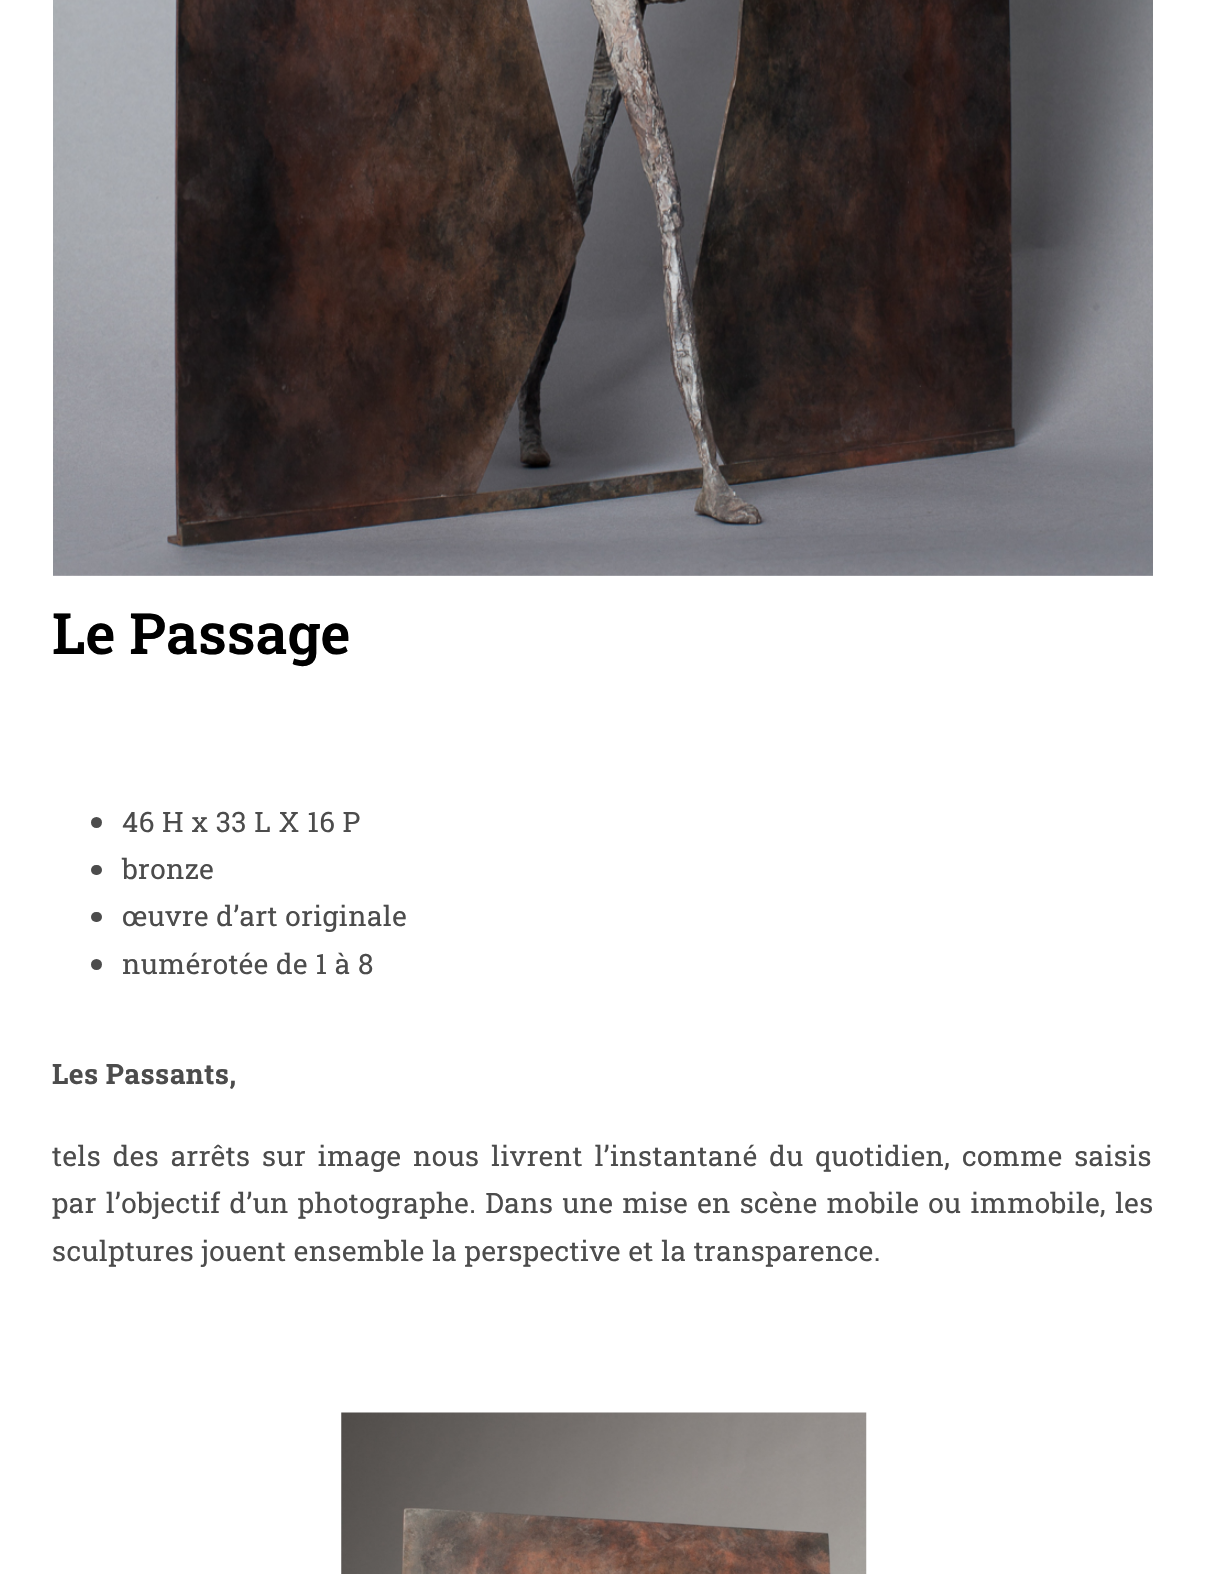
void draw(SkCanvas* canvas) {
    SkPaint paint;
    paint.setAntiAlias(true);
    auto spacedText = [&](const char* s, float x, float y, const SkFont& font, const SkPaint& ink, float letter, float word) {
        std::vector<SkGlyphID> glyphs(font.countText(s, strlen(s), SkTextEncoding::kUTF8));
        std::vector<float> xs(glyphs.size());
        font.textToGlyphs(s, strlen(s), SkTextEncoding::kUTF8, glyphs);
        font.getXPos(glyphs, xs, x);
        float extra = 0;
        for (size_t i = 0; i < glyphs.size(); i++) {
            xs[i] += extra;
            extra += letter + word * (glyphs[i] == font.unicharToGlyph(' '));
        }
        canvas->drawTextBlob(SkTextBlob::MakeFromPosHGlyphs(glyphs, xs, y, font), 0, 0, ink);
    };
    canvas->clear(0xFFFFFFFF);
    canvas->drawImageRect(SkImages::DeferredFromEncodedData(SkData::MakeFromFileName("img1.png")), SkRect::MakeXYWH(53, 0, 1100, 576), SkSamplingOptions());
    SkFont font1(fontMgr->matchFamilyStyle("Roboto Slab", SkFontStyle(600, SkFontStyle::kNormal_Width, SkFontStyle::kUpright_Slant)), 57);
    font1.setSubpixel(true);
    paint.setColor(0xFF000000);
    canvas->drawString("Le Passage", 52, 654, font1, paint);
    paint.setColor(0xFF4C4C4C);
    canvas->drawCircle(96.5f, 822.5f, 5.5f, paint);
    SkFont font2(fontMgr->matchFamilyStyle("Roboto Slab", SkFontStyle::Normal()), 28);
    font2.setSubpixel(true);
    spacedText("46 H x 33 L X 16 P", 122, 832, font2, paint, 0.42f, 0);
    canvas->drawRoundRect(SkRect::MakeXYWH(91, 865, 11, 10), 5, 5, paint);
    spacedText("bronze", 122, 879, font2, paint, 0.42f, 0);
    canvas->drawRoundRect(SkRect::MakeXYWH(91, 912, 11, 10), 5, 5, paint);
    spacedText("œuvre d’art originale", 122, 926, font2, paint, 0.42f, 0);
    canvas->drawCircle(96.5f, 964.5f, 5.5f, paint);
    spacedText("numérotée de 1 à 8", 122, 974, font2, paint, 0.42f, 0);
    SkFont font3(fontMgr->matchFamilyStyle("Roboto Slab", SkFontStyle::Bold()), 28);
    font3.setSubpixel(true);
    spacedText("Les Passants,", 52, 1084, font3, paint, 0.42f, 0);
    spacedText("tels des arrêts sur image nous livrent l’instantané du quotidien, comme saisis", 52, 1166, font2, paint, 0.42f, 4.25f);
    spacedText("par l’objectif d’un photographe. Dans une mise en scène mobile ou immobile, les", 52, 1213, font2, paint, 0.42f, 1.5f);
    spacedText("sculptures jouent ensemble la perspective et la transparence.", 52, 1261, font2, paint, 0.42f, 0);
    canvas->drawImageRect(SkImages::DeferredFromEncodedData(SkData::MakeFromFileName("img2.png")), SkRect::MakeXYWH(341, 1412, 526, 162), SkSamplingOptions());
}
